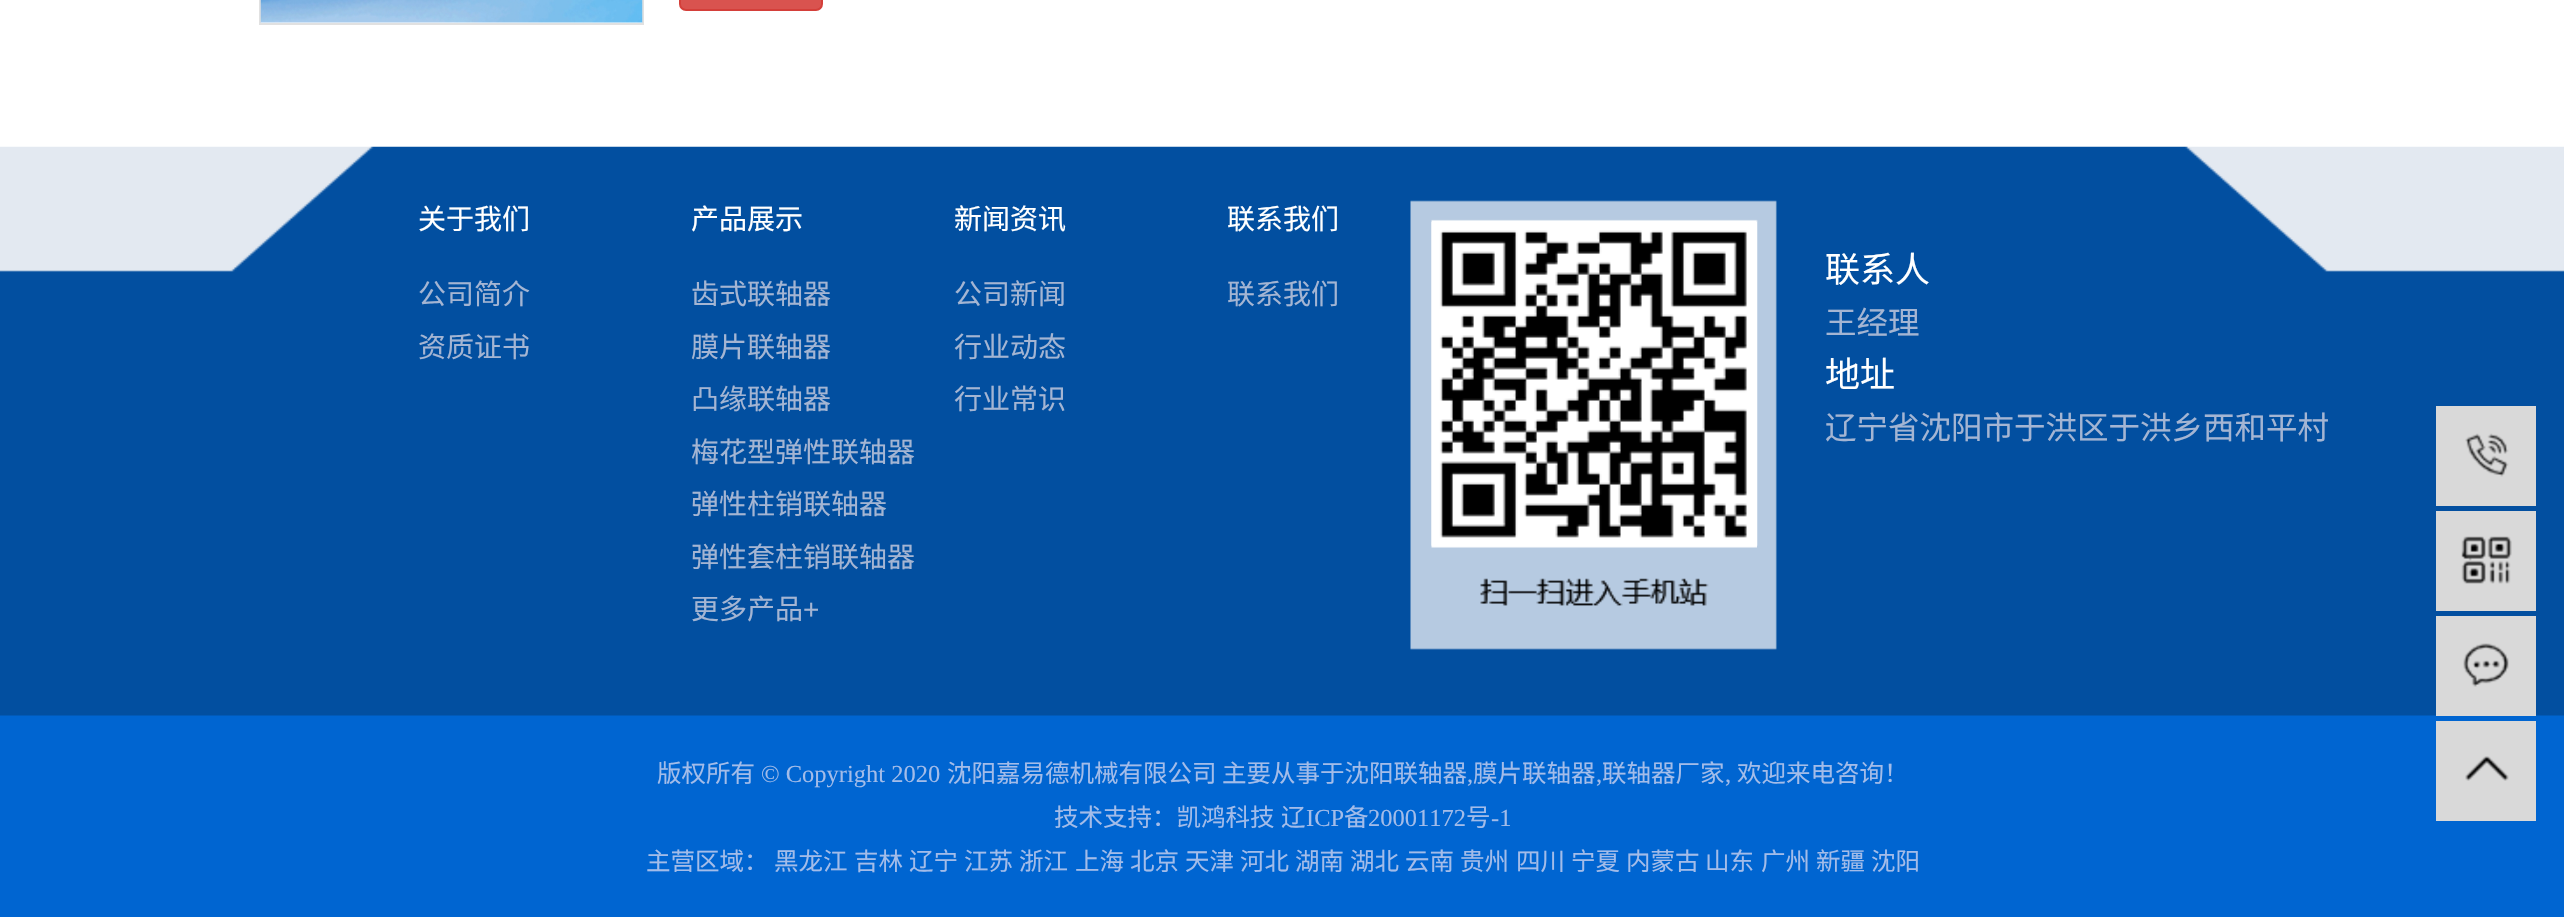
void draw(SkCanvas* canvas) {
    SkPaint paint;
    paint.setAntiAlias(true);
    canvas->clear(0xFFFFFFFF);
    paint.setStyle(SkPaint::kStroke_Style);
    paint.setStrokeWidth(2);
    paint.setColor(0xFFE1E1E1);
    canvas->drawRect(SkRect::MakeXYWH(260, -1, 383, 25), paint);
    canvas->drawImageRect(SkImages::DeferredFromEncodedData(SkData::MakeFromFileName("img1.png")), SkRect::MakeXYWH(260, 0, 383, 23), SkSamplingOptions());
    paint.setStyle(SkPaint::kFill_Style);
    paint.setColor(0xFFD9534F);
    canvas->drawRoundRect(SkRect::MakeXYWH(680, -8, 142, 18), 6, 6, paint);
    paint.setStyle(SkPaint::kStroke_Style);
    paint.setColor(0xFFD43F3A);
    canvas->drawRoundRect(SkRect::MakeXYWH(680, -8, 142, 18), 6, 6, paint);
    paint.setStyle(SkPaint::kFill_Style);
    paint.setColor(0xFF0065D1);
    canvas->drawRect(SkRect::MakeXYWH(0, 716, 2564, 201), paint);
    canvas->drawImageRect(SkImages::DeferredFromEncodedData(SkData::MakeFromFileName("img2.png")), SkRect::MakeXYWH(0, 146, 2564, 570), SkSamplingOptions());
    SkFont font1(fontMgr->matchFamilyStyle("Noto Sans CJK SC", SkFontStyle::Normal()), 28);
    font1.setSubpixel(true);
    paint.setColor(0xFFFFFFFF);
    canvas->drawString("关于我们", 418, 229, font1, paint);
    paint.setColor(0xFFA4B5D3);
    canvas->drawString("公司简介", 418, 304, font1, paint);
    canvas->drawString("资质证书", 418, 357, font1, paint);
    paint.setColor(0xFFFFFFFF);
    canvas->drawString("产品展示", 691, 229, font1, paint);
    paint.setColor(0xFFA4B5D3);
    canvas->drawString("齿式联轴器", 691, 304, font1, paint);
    canvas->drawString("膜片联轴器", 691, 357, font1, paint);
    canvas->drawString("凸缘联轴器", 691, 409, font1, paint);
    canvas->drawString("梅花型弹性联轴器", 691, 462, font1, paint);
    canvas->drawString("弹性柱销联轴器", 691, 514, font1, paint);
    canvas->drawString("弹性套柱销联轴器", 691, 567, font1, paint);
    canvas->drawString("更多产品", 691, 619, font1, paint);
    SkFont font2(fontMgr->matchFamilyStyle("Liberation Sans", SkFontStyle::Normal()), 28);
    font2.setSubpixel(true);
    canvas->drawString("+", 803, 619, font2, paint);
    paint.setColor(0xFFFFFFFF);
    canvas->drawString("新闻资讯", 954, 229, font1, paint);
    paint.setColor(0xFFA4B5D3);
    canvas->drawString("公司新闻", 954, 304, font1, paint);
    canvas->drawString("行业动态", 954, 357, font1, paint);
    canvas->drawString("行业常识", 954, 409, font1, paint);
    paint.setColor(0xFFFFFFFF);
    canvas->drawString("联系我们", 1227, 229, font1, paint);
    paint.setColor(0xFFA4B5D3);
    canvas->drawString("联系我们", 1227, 304, font1, paint);
    canvas->drawImageRect(SkImages::DeferredFromEncodedData(SkData::MakeFromFileName("img3.png")), SkRect::MakeXYWH(1431, 222, 326, 384), SkSamplingOptions());
    SkFont font3(fontMgr->matchFamilyStyle("Noto Sans CJK SC", SkFontStyle::Normal()), 35);
    font3.setSubpixel(true);
    paint.setColor(0xFFFFFFFF);
    canvas->drawString("联系人", 1825, 282, font3, paint);
    SkFont font4(fontMgr->matchFamilyStyle("Noto Sans CJK SC", SkFontStyle::Normal()), 31.5f);
    font4.setSubpixel(true);
    paint.setColor(0xFFA4B5D3);
    canvas->drawString("王经理", 1825, 334, font4, paint);
    paint.setColor(0xFFFFFFFF);
    canvas->drawString("地址", 1825, 387, font3, paint);
    paint.setColor(0xFFA4B5D3);
    canvas->drawString("辽宁省沈阳市于洪区于洪乡西和平村", 1825, 439, font4, paint);
    SkFont font5(fontMgr->matchFamilyStyle("Noto Sans CJK SC", SkFontStyle::Normal()), 24.5f);
    font5.setSubpixel(true);
    paint.setColor(0xFFA3BCE9);
    canvas->drawString("版权所有", 657, 782, font5, paint);
    SkFont font6(fontMgr->matchFamilyStyle("Liberation Serif", SkFontStyle::Normal()), 24.5f);
    font6.setSubpixel(true);
    canvas->drawString("© Copyright 2020", 761, 782, font6, paint);
    canvas->drawString("沈阳嘉易德机械有限公司", 947, 782, font5, paint);
    canvas->drawString("主要从事于沈阳联轴器", 1222, 782, font5, paint);
    canvas->drawString(",", 1467, 782, font6, paint);
    canvas->drawString("膜片联轴器", 1473, 782, font5, paint);
    canvas->drawString(",", 1596, 782, font6, paint);
    canvas->drawString("联轴器厂家", 1602, 782, font5, paint);
    canvas->drawString(",", 1725, 782, font6, paint);
    canvas->drawString("欢迎来电咨询！", 1737, 782, font5, paint);
    canvas->drawString("技术支持：凯鸿科技", 1054, 826, font5, paint);
    canvas->drawString("辽", 1281, 826, font5, paint);
    canvas->drawString("ICP", 1306, 826, font6, paint);
    canvas->drawString("备", 1344, 826, font5, paint);
    canvas->drawString("20001172", 1368, 826, font6, paint);
    canvas->drawString("号", 1466, 826, font5, paint);
    canvas->drawString("-1", 1491, 826, font6, paint);
    canvas->drawString("主营区域：", 646, 870, font5, paint);
    canvas->drawString("黑龙江", 774, 870, font5, paint);
    canvas->drawString("吉林", 854, 870, font5, paint);
    canvas->drawString("辽宁", 909, 870, font5, paint);
    canvas->drawString("江苏", 964, 870, font5, paint);
    canvas->drawString("浙江", 1019, 870, font5, paint);
    canvas->drawString("上海", 1075, 870, font5, paint);
    canvas->drawString("北京", 1130, 870, font5, paint);
    canvas->drawString("天津", 1185, 870, font5, paint);
    canvas->drawString("河北", 1240, 870, font5, paint);
    canvas->drawString("湖南", 1295, 870, font5, paint);
    canvas->drawString("湖北", 1350, 870, font5, paint);
    canvas->drawString("云南", 1405, 870, font5, paint);
    canvas->drawString("贵州", 1460, 870, font5, paint);
    canvas->drawString("四川", 1516, 870, font5, paint);
    canvas->drawString("宁夏", 1571, 870, font5, paint);
    canvas->drawString("内蒙古", 1626, 870, font5, paint);
    canvas->drawString("山东", 1705, 870, font5, paint);
    canvas->drawString("广州", 1761, 870, font5, paint);
    canvas->drawString("新疆", 1816, 870, font5, paint);
    canvas->drawString("沈阳", 1871, 870, font5, paint);
    paint.setColor(0xFFD9D9D9);
    canvas->drawRect(SkRect::MakeXYWH(2436, 406, 100, 100), paint);
    canvas->drawImageRect(SkImages::DeferredFromEncodedData(SkData::MakeFromFileName("img4.png")), SkRect::MakeXYWH(2465, 433, 44, 44), SkSamplingOptions());
    canvas->drawRect(SkRect::MakeXYWH(2436, 511, 100, 100), paint);
    canvas->drawImageRect(SkImages::DeferredFromEncodedData(SkData::MakeFromFileName("img5.png")), SkRect::MakeXYWH(2461, 536, 51, 48), SkSamplingOptions());
    canvas->drawRect(SkRect::MakeXYWH(2436, 616, 100, 100), paint);
    canvas->drawImageRect(SkImages::DeferredFromEncodedData(SkData::MakeFromFileName("img6.png")), SkRect::MakeXYWH(2463, 643, 46, 44), SkSamplingOptions());
    canvas->drawRect(SkRect::MakeXYWH(2436, 721, 100, 100), paint);
    canvas->drawImageRect(SkImages::DeferredFromEncodedData(SkData::MakeFromFileName("img7.png")), SkRect::MakeXYWH(2465, 756, 44, 25), SkSamplingOptions());
}
